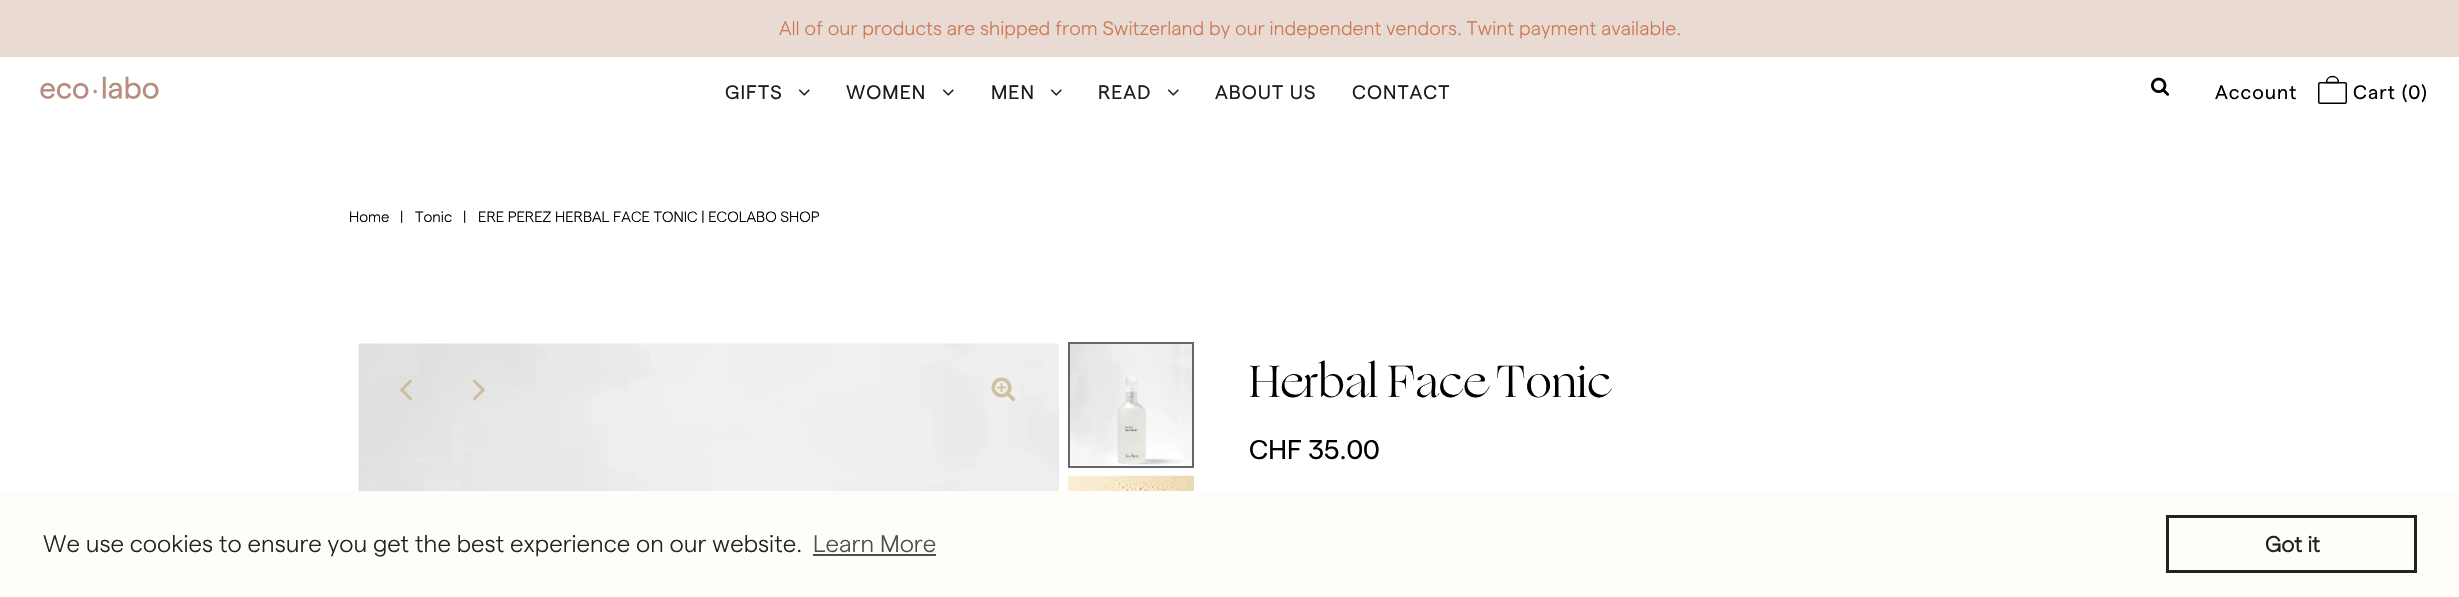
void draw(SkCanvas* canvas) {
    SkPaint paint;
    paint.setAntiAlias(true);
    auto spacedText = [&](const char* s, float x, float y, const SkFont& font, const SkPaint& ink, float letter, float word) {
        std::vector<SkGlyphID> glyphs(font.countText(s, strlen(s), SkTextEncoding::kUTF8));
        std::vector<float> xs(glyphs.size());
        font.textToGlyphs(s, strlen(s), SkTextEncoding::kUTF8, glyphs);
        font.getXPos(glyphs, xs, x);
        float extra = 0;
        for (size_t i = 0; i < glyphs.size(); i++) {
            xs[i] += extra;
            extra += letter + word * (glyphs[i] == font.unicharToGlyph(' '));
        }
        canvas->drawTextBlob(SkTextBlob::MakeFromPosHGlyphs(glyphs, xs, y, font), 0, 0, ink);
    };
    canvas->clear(0xFFFFFFFF);
    paint.setColor(0xFFE9DBD4);
    canvas->drawRect(SkRect::MakeXYWH(0, 0, 2459, 57), paint);
    SkFont font1(fontMgr->matchFamilyStyle("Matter", SkFontStyle(300, SkFontStyle::kNormal_Width, SkFontStyle::kUpright_Slant)), 19.5f);
    font1.setSubpixel(true);
    paint.setColor(0xFFCB7B53);
    canvas->drawString("All of our products are shipped from Switzerland by our independent vendors. Twint payment available.", 779, 35, font1, paint);
    canvas->drawImageRect(SkImages::DeferredFromEncodedData(SkData::MakeFromFileName("img1.png")), SkRect::MakeXYWH(40, 76, 119, 23), SkSamplingOptions());
    SkFont font2(fontMgr->matchFamilyStyle("Matter", SkFontStyle::Normal()), 19.5f);
    font2.setSubpixel(true);
    paint.setColor(0xFF1C1C1C);
    spacedText("GIFTS", 725, 99, font2, paint, 1, 0);
    canvas->drawImageRect(SkImages::DeferredFromEncodedData(SkData::MakeFromFileName("img2.png")), SkRect::MakeXYWH(798, 89, 12, 7), SkSamplingOptions());
    spacedText("WOMEN", 846, 99, font2, paint, 1, 0);
    canvas->drawImageRect(SkImages::DeferredFromEncodedData(SkData::MakeFromFileName("img2.png")), SkRect::MakeXYWH(942, 89, 12, 7), SkSamplingOptions());
    spacedText("MEN", 991, 99, font2, paint, 1, 0);
    canvas->drawImageRect(SkImages::DeferredFromEncodedData(SkData::MakeFromFileName("img2.png")), SkRect::MakeXYWH(1050, 89, 12, 7), SkSamplingOptions());
    spacedText("READ", 1098, 99, font2, paint, 1, 0);
    canvas->drawImageRect(SkImages::DeferredFromEncodedData(SkData::MakeFromFileName("img2.png")), SkRect::MakeXYWH(1167, 89, 12, 7), SkSamplingOptions());
    spacedText("ABOUT US", 1215, 99, font2, paint, 1, 0);
    spacedText("CONTACT", 1352, 99, font2, paint, 1, 0);
    canvas->drawImageRect(SkImages::DeferredFromEncodedData(SkData::MakeFromFileName("img3.png")), SkRect::MakeXYWH(2151, 77, 19, 19), SkSamplingOptions());
    paint.setColor(0xFF000000);
    spacedText("Account", 2215, 99, font2, paint, 1, 0);
    paint.setStyle(SkPaint::kStroke_Style);
    paint.setStrokeWidth(1.5f);
    canvas->drawPath(SkPathBuilder().moveTo(2332.5f, 76.5f).cubicTo(2336, 76.5f, 2338.5f, 79, 2338.5f, 82.5f).lineTo(2326.5f, 82.5f).cubicTo(2326.5f, 79, 2329, 76.5f, 2332.5f, 76.5f).close().detach(), paint);
    canvas->drawRoundRect(SkRect::MakeXYWH(2318.75f, 82.75f, 27.5f, 20.5f), 1.25f, 1.25f, paint);
    paint.setStyle(SkPaint::kFill_Style);
    spacedText("Cart", 2353, 99, font2, paint, 1, 0);
    spacedText("(0)", 2402, 99, font2, paint, 1, 0);
    SkFont font3(fontMgr->matchFamilyStyle("Matter", SkFontStyle(300, SkFontStyle::kNormal_Width, SkFontStyle::kUpright_Slant)), 15);
    font3.setSubpixel(true);
    canvas->drawString("Home", 349, 222, font3, paint);
    canvas->drawString("|", 400, 222, font3, paint);
    canvas->drawString("Tonic", 415, 222, font3, paint);
    canvas->drawString("|", 463, 222, font3, paint);
    canvas->drawString("ERE PEREZ HERBAL FACE TONIC | ECOLABO SHOP", 478, 222, font3, paint);
    canvas->drawImageRect(SkImages::DeferredFromEncodedData(SkData::MakeFromFileName("img4.png")), SkRect::MakeXYWH(358, 343, 701, 148), SkSamplingOptions());
    canvas->drawImageRect(SkImages::DeferredFromEncodedData(SkData::MakeFromFileName("img5.png")), SkRect::MakeXYWH(991, 377, 25, 25), SkSamplingOptions());
    canvas->drawImageRect(SkImages::DeferredFromEncodedData(SkData::MakeFromFileName("img6.png")), SkRect::MakeXYWH(400, 379, 12, 22), SkSamplingOptions());
    canvas->drawImageRect(SkImages::DeferredFromEncodedData(SkData::MakeFromFileName("img7.png")), SkRect::MakeXYWH(472, 379, 13, 22), SkSamplingOptions());
    canvas->drawImageRect(SkImages::DeferredFromEncodedData(SkData::MakeFromFileName("img8.png")), SkRect::MakeXYWH(1070, 344, 122, 122), SkSamplingOptions());
    paint.setStyle(SkPaint::kStroke_Style);
    paint.setStrokeWidth(2);
    paint.setColor(0xFF666666);
    canvas->drawRect(SkRect::MakeXYWH(1069, 343, 124, 124), paint);
    canvas->drawImageRect(SkImages::DeferredFromEncodedData(SkData::MakeFromFileName("img9.png")), SkRect::MakeXYWH(1068, 475, 126, 16), SkSamplingOptions());
    SkFont font4(fontMgr->matchFamilyStyle("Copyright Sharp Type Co", SkFontStyle::Normal()), 45);
    font4.setSubpixel(true);
    paint.setStyle(SkPaint::kFill_Style);
    paint.setColor(0xFF000000);
    canvas->drawString("Herbal Face Tonic", 1249, 397, font4, paint);
    SkFont font5(fontMgr->matchFamilyStyle("Matter", SkFontStyle::Normal()), 27);
    font5.setSubpixel(true);
    canvas->drawString("CHF 35.00", 1249, 459, font5, paint);
    paint.setColor(0xFFFFFDFA);
    canvas->drawRect(SkRect::MakeXYWH(0, 491, 2459, 106), paint);
    SkFont font6(fontMgr->matchFamilyStyle("Matter", SkFontStyle(300, SkFontStyle::kNormal_Width, SkFontStyle::kUpright_Slant)), 24);
    font6.setSubpixel(true);
    paint.setColor(0xFF222222);
    canvas->drawString("We use cookies to ensure you get the best experience on our website.", 43, 552, font6, paint);
    paint.setColor(0xFF4E4E4D);
    canvas->drawString("Learn More", 813, 552, font6, paint);
    canvas->drawRect(SkRect::MakeXYWH(813, 554, 123, 2), paint);
    paint.setStyle(SkPaint::kStroke_Style);
    paint.setStrokeWidth(3);
    paint.setColor(0xFF222222);
    canvas->drawRect(SkRect::MakeXYWH(2167.5f, 516.5f, 248, 55), paint);
    SkFont font7(fontMgr->matchFamilyStyle("Matter", SkFontStyle::Bold()), 22);
    font7.setSubpixel(true);
    paint.setStyle(SkPaint::kFill_Style);
    canvas->drawString("Got it", 2265, 552, font7, paint);
}
